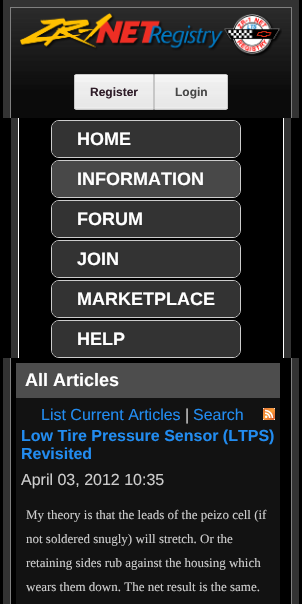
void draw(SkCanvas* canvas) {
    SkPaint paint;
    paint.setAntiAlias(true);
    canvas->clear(0xFF000000);
    paint.setColor(0xFF333333);
    canvas->drawRect(SkRect::MakeXYWH(3, 0, 296, 118), paint);
    canvas->drawImageRect(SkImages::DeferredFromEncodedData(SkData::MakeFromFileName("img1.png")), SkRect::MakeXYWH(11, 8, 280, 110), SkSamplingOptions());
    paint.setColor(0xFF808080);
    canvas->drawRect(SkRect::MakeXYWH(10, 7, 282, 1), paint);
    canvas->drawRect(SkRect::MakeXYWH(291, 7, 1, 111), paint);
    canvas->drawRect(SkRect::MakeXYWH(10, 7, 1, 111), paint);
    canvas->drawImageRect(SkImages::DeferredFromEncodedData(SkData::MakeFromFileName("img2.png")), SkRect::MakeXYWH(20, 13, 262, 43), SkSamplingOptions());
    canvas->drawImageRect(SkImages::DeferredFromEncodedData(SkData::MakeFromFileName("img3.png")), SkRect::MakeXYWH(74, 75, 79, 34), SkSamplingOptions());
    paint.setStyle(SkPaint::kStroke_Style);
    paint.setStrokeWidth(1);
    paint.setColor(0xFFC7C7C7);
    canvas->drawPath(SkPathBuilder().moveTo(76, 74.5f).lineTo(153.5f, 74.5f).lineTo(153.5f, 109.5f).lineTo(76, 109.5f).cubicTo(75, 109.5f, 74.5f, 109, 74.5f, 108).lineTo(74.5f, 76).cubicTo(74.5f, 75, 75, 74.5f, 76, 74.5f).close().detach(), paint);
    SkFont font1(fontMgr->matchFamilyStyle("Liberation Sans", SkFontStyle::Bold()), 12);
    font1.setSubpixel(true);
    paint.setStyle(SkPaint::kFill_Style);
    paint.setColor(0xFF2F1D29);
    canvas->drawString("Register", 90, 96, font1, paint);
    canvas->drawImageRect(SkImages::DeferredFromEncodedData(SkData::MakeFromFileName("img4.png")), SkRect::MakeXYWH(155, 75, 73, 34), SkSamplingOptions());
    paint.setStyle(SkPaint::kStroke_Style);
    paint.setColor(0xFFC7C7C7);
    canvas->drawPath(SkPathBuilder().moveTo(154.5f, 74.5f).lineTo(226, 74.5f).cubicTo(227, 74.5f, 227.5f, 75, 227.5f, 76).lineTo(227.5f, 108).cubicTo(227.5f, 109, 227, 109.5f, 226, 109.5f).lineTo(154.5f, 109.5f).close().detach(), paint);
    paint.setStyle(SkPaint::kFill_Style);
    paint.setColor(0xFF484848);
    canvas->drawString("Login", 175, 96, font1, paint);
    paint.setColor(0xFF333333);
    canvas->drawRect(SkRect::MakeXYWH(11, 118, 7, 240), paint);
    canvas->drawRect(SkRect::MakeXYWH(284, 118, 7, 240), paint);
    paint.setColor(0xFFFFFFFF);
    canvas->drawRect(SkRect::MakeXYWH(283, 118, 1, 240), paint);
    canvas->drawRect(SkRect::MakeXYWH(18, 118, 1, 240), paint);
    paint.setStyle(SkPaint::kStroke_Style);
    paint.setColor(0xFFCCCCCC);
    canvas->drawRoundRect(SkRect::MakeXYWH(51.5f, 120.5f, 189, 37), 7.5f, 7.5f, paint);
    paint.setStyle(SkPaint::kFill_Style);
    paint.setColor(0xFF333333);
    canvas->drawRoundRect(SkRect::MakeXYWH(52, 121, 188, 36), 7, 7, paint);
    SkFont font2(fontMgr->matchFamilyStyle("Liberation Sans", SkFontStyle::Bold()), 18);
    font2.setSubpixel(true);
    paint.setColor(0xFFFFFFFF);
    canvas->drawString("HOME", 77, 145, font2, paint);
    paint.setStyle(SkPaint::kStroke_Style);
    paint.setColor(0xFFCCCCCC);
    canvas->drawRoundRect(SkRect::MakeXYWH(51.5f, 160.5f, 189, 37), 7.5f, 7.5f, paint);
    paint.setStyle(SkPaint::kFill_Style);
    paint.setColor(0xFF484848);
    canvas->drawRoundRect(SkRect::MakeXYWH(52, 161, 188, 36), 7, 7, paint);
    paint.setColor(0xFFFFFFFF);
    canvas->drawString("INFORMATION", 77, 185, font2, paint);
    paint.setStyle(SkPaint::kStroke_Style);
    paint.setColor(0xFFCCCCCC);
    canvas->drawRoundRect(SkRect::MakeXYWH(51.5f, 200.5f, 189, 37), 7.5f, 7.5f, paint);
    paint.setStyle(SkPaint::kFill_Style);
    paint.setColor(0xFF333333);
    canvas->drawRoundRect(SkRect::MakeXYWH(52, 201, 188, 36), 7, 7, paint);
    paint.setColor(0xFFFFFFFF);
    canvas->drawString("FORUM", 77, 225, font2, paint);
    paint.setStyle(SkPaint::kStroke_Style);
    paint.setColor(0xFFCCCCCC);
    canvas->drawRoundRect(SkRect::MakeXYWH(51.5f, 240.5f, 189, 37), 7.5f, 7.5f, paint);
    paint.setStyle(SkPaint::kFill_Style);
    paint.setColor(0xFF333333);
    canvas->drawRoundRect(SkRect::MakeXYWH(52, 241, 188, 36), 7, 7, paint);
    paint.setColor(0xFFFFFFFF);
    canvas->drawString("JOIN", 77, 265, font2, paint);
    paint.setStyle(SkPaint::kStroke_Style);
    paint.setColor(0xFFCCCCCC);
    canvas->drawRoundRect(SkRect::MakeXYWH(51.5f, 280.5f, 189, 37), 7.5f, 7.5f, paint);
    paint.setStyle(SkPaint::kFill_Style);
    paint.setColor(0xFF333333);
    canvas->drawRoundRect(SkRect::MakeXYWH(52, 281, 188, 36), 7, 7, paint);
    paint.setColor(0xFFFFFFFF);
    canvas->drawString("MARKETPLACE", 77, 305, font2, paint);
    paint.setStyle(SkPaint::kStroke_Style);
    paint.setColor(0xFFCCCCCC);
    canvas->drawRoundRect(SkRect::MakeXYWH(51.5f, 320.5f, 189, 37), 7.5f, 7.5f, paint);
    paint.setStyle(SkPaint::kFill_Style);
    paint.setColor(0xFF333333);
    canvas->drawRoundRect(SkRect::MakeXYWH(52, 321, 188, 36), 7, 7, paint);
    paint.setColor(0xFFFFFFFF);
    canvas->drawString("HELP", 77, 345, font2, paint);
    paint.setColor(0xFF333333);
    canvas->drawRect(SkRect::MakeXYWH(3, 358, 296, 246), paint);
    paint.setColor(0xFF000000);
    canvas->drawRect(SkRect::MakeXYWH(11, 358, 280, 246), paint);
    paint.setColor(0xFF808080);
    canvas->drawRect(SkRect::MakeXYWH(291, 358, 1, 246), paint);
    canvas->drawRect(SkRect::MakeXYWH(10, 358, 1, 246), paint);
    paint.setColor(0xFF4D4D4D);
    canvas->drawRect(SkRect::MakeXYWH(16, 363, 264, 35), paint);
    paint.setColor(0xFFFFFFFF);
    canvas->drawString("All Articles", 25, 386, font2, paint);
    paint.setColor(0xFF121212);
    canvas->drawRect(SkRect::MakeXYWH(16, 398, 264, 206), paint);
    SkFont font3(fontMgr->matchFamilyStyle("Liberation Sans", SkFontStyle::Normal()), 16);
    font3.setSubpixel(true);
    paint.setColor(0xFF228CF0);
    canvas->drawString("List Current Articles", 41, 420, font3, paint);
    paint.setColor(0xFFCCCCCC);
    canvas->drawString("|", 185, 420, font3, paint);
    paint.setColor(0xFF228CF0);
    canvas->drawString("Search", 193, 420, font3, paint);
    canvas->drawImageRect(SkImages::DeferredFromEncodedData(SkData::MakeFromFileName("img5.png")), SkRect::MakeXYWH(263, 408, 12, 12), SkSamplingOptions());
    SkFont font4(fontMgr->matchFamilyStyle("Liberation Sans", SkFontStyle::Bold()), 16);
    font4.setSubpixel(true);
    canvas->drawString("Low Tire Pressure Sensor (LTPS)", 21, 441, font4, paint);
    canvas->drawString("Revisited", 21, 459, font4, paint);
    paint.setColor(0xFFCCCCCC);
    canvas->drawString("April 03, 2012 10:35", 21, 485, font3, paint);
    SkFont font5(fontMgr->matchFamilyStyle("Liberation Serif", SkFontStyle::Normal()), 13);
    font5.setSubpixel(true);
    canvas->drawString("My theory is that the leads of the peizo cell (if", 26, 519, font5, paint);
    canvas->drawString("not soldered snugly) will stretch. Or the", 26, 543, font5, paint);
    canvas->drawString("retaining sides rub against the housing which", 26, 567, font5, paint);
    canvas->drawString("wears them down. The net result is the same.", 26, 591, font5, paint);
}
